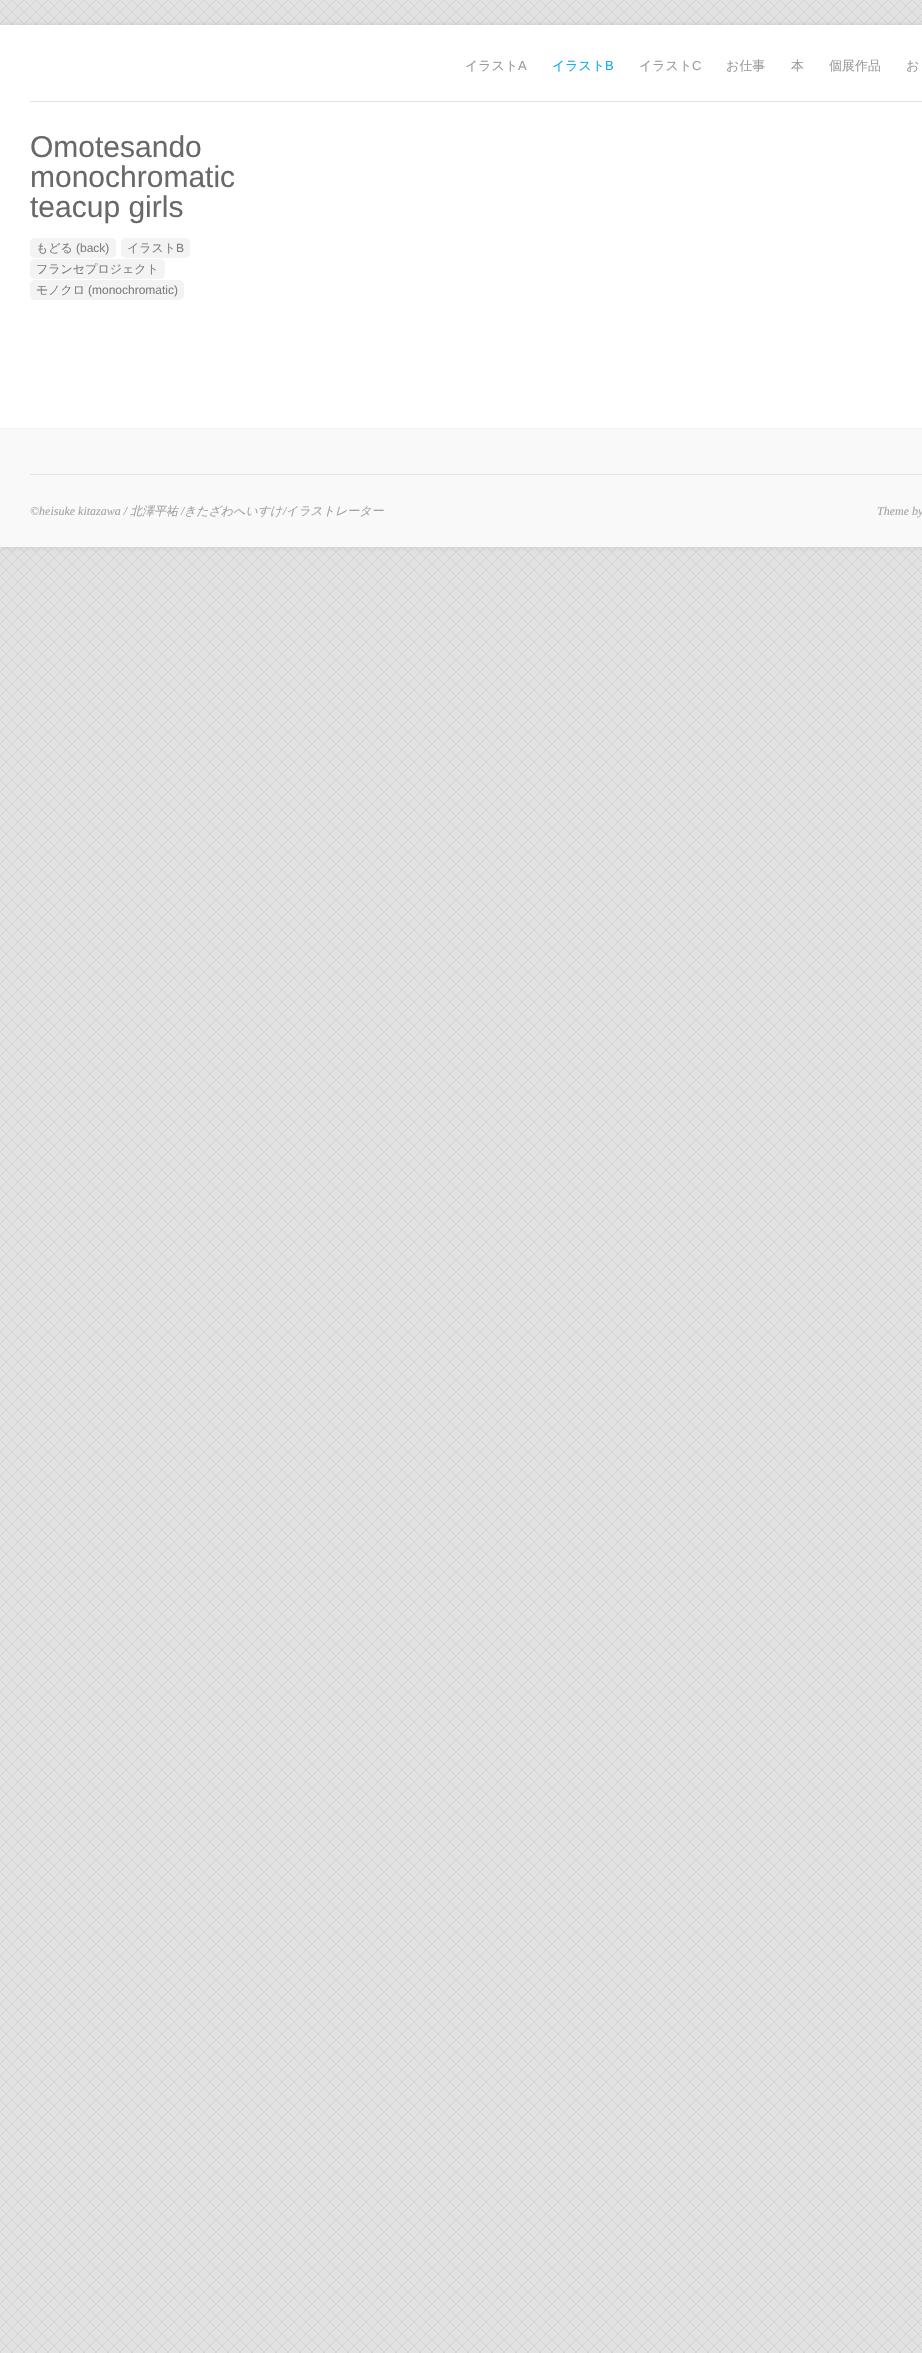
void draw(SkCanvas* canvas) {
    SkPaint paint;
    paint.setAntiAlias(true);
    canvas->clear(0xFFFFFFFF);
    canvas->drawImageRect(SkImages::DeferredFromEncodedData(SkData::MakeFromFileName("img1.png")), SkRect::MakeXYWH(0, 0, 922, 2353), SkSamplingOptions());
    paint.setColor(0x1A000000);
    paint.setMaskFilter(SkMaskFilter::MakeBlur(kNormal_SkBlurStyle, 3));
    canvas->drawRect(SkRect::MakeXYWH(0, 25, 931, 522), paint);
    paint.setMaskFilter(nullptr);
    paint.setColor(0xFFFFFFFF);
    canvas->drawRect(SkRect::MakeXYWH(0, 25, 922, 403), paint);
    paint.setColor(0xFFE3E3E3);
    canvas->drawRect(SkRect::MakeXYWH(30, 101, 892, 1), paint);
    SkFont font1(fontMgr->matchFamilyStyle("WenQuanYi Zen Hei", SkFontStyle(500, SkFontStyle::kNormal_Width, SkFontStyle::kUpright_Slant)), 13);
    font1.setSubpixel(true);
    paint.setColor(0xFF9B9B9B);
    canvas->drawString("イラスト", 465, 70, font1, paint);
    SkFont font2(fontMgr->matchFamilyStyle("Liberation Sans", SkFontStyle::Normal()), 13);
    font2.setSubpixel(true);
    canvas->drawString("A", 518, 70, font2, paint);
    paint.setColor(0xFF12AEE8);
    canvas->drawString("イラスト", 552, 70, font1, paint);
    canvas->drawString("B", 605, 70, font2, paint);
    paint.setColor(0xFF9B9B9B);
    canvas->drawString("イラスト", 639, 70, font1, paint);
    canvas->drawString("C", 692, 70, font2, paint);
    canvas->drawString("お仕事", 726, 70, font1, paint);
    canvas->drawString("本", 791, 70, font1, paint);
    canvas->drawString("個展作品", 829, 70, font1, paint);
    canvas->drawString("お", 906, 70, font1, paint);
    SkFont font3(fontMgr->matchFamilyStyle("Liberation Sans", SkFontStyle::Normal()), 30);
    font3.setSubpixel(true);
    paint.setColor(0xFF696969);
    canvas->drawString("Omotesando", 30, 157, font3, paint);
    canvas->drawString("monochromatic", 30, 187, font3, paint);
    canvas->drawString("teacup girls", 30, 217, font3, paint);
    paint.setColor(0xFFF3F3F3);
    canvas->drawRoundRect(SkRect::MakeXYWH(30, 238, 86, 20), 5, 5, paint);
    SkFont font4(fontMgr->matchFamilyStyle("WenQuanYi Zen Hei", SkFontStyle(500, SkFontStyle::kNormal_Width, SkFontStyle::kUpright_Slant)), 12);
    font4.setSubpixel(true);
    paint.setColor(0xFF7D7D7B);
    canvas->drawString("もどる", 36, 252, font4, paint);
    SkFont font5(fontMgr->matchFamilyStyle("Liberation Sans", SkFontStyle::Normal()), 12);
    font5.setSubpixel(true);
    canvas->drawString("(back)", 76, 252, font5, paint);
    paint.setColor(0xFFF3F3F3);
    canvas->drawRoundRect(SkRect::MakeXYWH(121, 238, 69, 20), 5, 5, paint);
    paint.setColor(0xFF7D7D7B);
    canvas->drawString("イラスト", 127, 252, font4, paint);
    canvas->drawString("B", 176, 252, font5, paint);
    paint.setColor(0xFFF3F3F3);
    canvas->drawRoundRect(SkRect::MakeXYWH(30, 259, 135, 20), 5, 5, paint);
    paint.setColor(0xFF7D7D7B);
    canvas->drawString("フランセプロジェクト", 36, 273, font4, paint);
    paint.setColor(0xFFF3F3F3);
    canvas->drawRoundRect(SkRect::MakeXYWH(30, 280, 154, 20), 5, 5, paint);
    paint.setColor(0xFF7D7D7B);
    canvas->drawString("モノクロ", 36, 294, font4, paint);
    canvas->drawString("(monochromatic)", 88, 294, font5, paint);
    paint.setColor(0xFFFAF9F9);
    canvas->drawRect(SkRect::MakeXYWH(0, 429, 922, 118), paint);
    paint.setColor(0xFFF3F2F2);
    canvas->drawRect(SkRect::MakeXYWH(0, 428, 922, 1), paint);
    paint.setColor(0xFFE4E4E4);
    canvas->drawRect(SkRect::MakeXYWH(30, 474, 892, 1), paint);
    SkFont font6(fontMgr->matchFamilyStyle("Liberation Serif", SkFontStyle::Italic()), 12);
    font6.setSubpixel(true);
    paint.setColor(0xFFA2A2A2);
    canvas->drawString("©heisuke kitazawa /", 30, 515, font6, paint);
    SkFont font7(fontMgr->matchFamilyStyle("WenQuanYi Zen Hei", SkFontStyle(500, SkFontStyle::kNormal_Width, SkFontStyle::kItalic_Slant)), 12);
    font7.setSubpixel(true);
    canvas->drawString("北澤平祐", 130, 515, font7, paint);
    canvas->drawString("/", 181, 515, font6, paint);
    canvas->drawString("きたざわへいすけ イラストレーター", 184, 515, font7, paint);
    canvas->drawString("/", 283, 515, font6, paint);
    canvas->drawString("Theme by", 877, 515, font6, paint);
}
